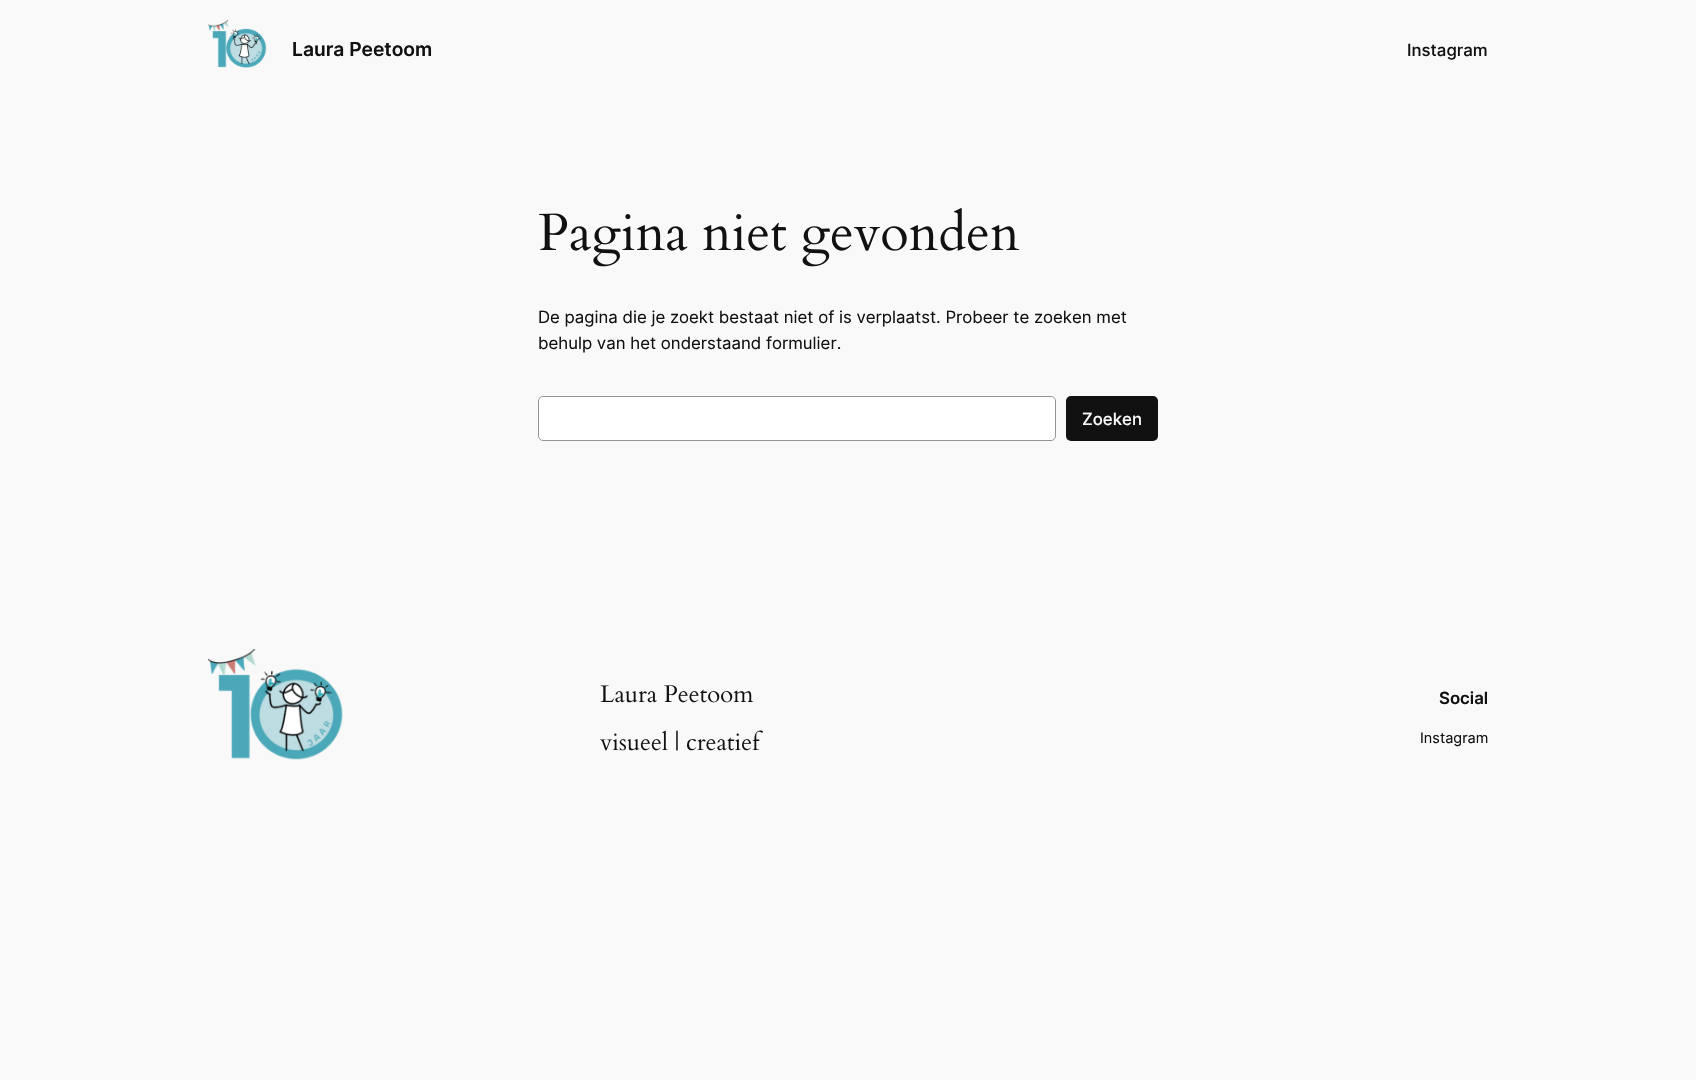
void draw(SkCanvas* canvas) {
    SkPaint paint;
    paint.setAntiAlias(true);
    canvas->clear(0xFFF9F9F9);
    canvas->drawImageRect(SkImages::DeferredFromEncodedData(SkData::MakeFromFileName("img1.png")), SkRect::MakeXYWH(208, 20, 59, 48), SkSamplingOptions());
    SkFont font1(fontMgr->matchFamilyStyle("Inter", SkFontStyle(600, SkFontStyle::kNormal_Width, SkFontStyle::kUpright_Slant)), 19.25f);
    font1.setSubpixel(true);
    paint.setColor(0xFF111111);
    canvas->drawString("Laura Peetoom", 292, 56, font1, paint);
    SkFont font2(fontMgr->matchFamilyStyle("Inter", SkFontStyle(500, SkFontStyle::kNormal_Width, SkFontStyle::kUpright_Slant)), 16.8f);
    font2.setSubpixel(true);
    canvas->drawString("Instagram", 1407, 56, font2, paint);
    canvas->drawImageRect(SkImages::DeferredFromEncodedData(SkData::MakeFromFileName("img2.png")), SkRect::MakeXYWH(539, 208, 481, 59), SkSamplingOptions());
    SkFont font3(fontMgr->matchFamilyStyle("Inter", SkFontStyle::Normal()), 16.8f);
    font3.setSubpixel(true);
    canvas->drawString("De pagina die je zoekt bestaat niet of is verplaatst. Probeer te zoeken met", 538, 323, font3, paint);
    canvas->drawString("behulp van het onderstaand formulier.", 538, 349, font3, paint);
    paint.setColor(0xFFFFFFFF);
    canvas->drawRoundRect(SkRect::MakeXYWH(538.5f, 396.5f, 517, 44), 4.5f, 4.5f, paint);
    paint.setStyle(SkPaint::kStroke_Style);
    paint.setStrokeWidth(1);
    paint.setColor(0xFF949494);
    canvas->drawRoundRect(SkRect::MakeXYWH(538.5f, 396.5f, 517, 44), 4.5f, 4.5f, paint);
    paint.setStyle(SkPaint::kFill_Style);
    paint.setColor(0xFF111111);
    canvas->drawRoundRect(SkRect::MakeXYWH(1066, 396, 92, 45), 5, 5, paint);
    paint.setColor(0xFFF9F9F9);
    canvas->drawString("Zoeken", 1082, 425, font2, paint);
    canvas->drawImageRect(SkImages::DeferredFromEncodedData(SkData::MakeFromFileName("img3.png")), SkRect::MakeXYWH(208, 649, 135, 111), SkSamplingOptions());
    canvas->drawImageRect(SkImages::DeferredFromEncodedData(SkData::MakeFromFileName("img4.png")), SkRect::MakeXYWH(600, 685, 154, 18), SkSamplingOptions());
    canvas->drawImageRect(SkImages::DeferredFromEncodedData(SkData::MakeFromFileName("img5.png")), SkRect::MakeXYWH(600, 730, 163, 21), SkSamplingOptions());
    SkFont font4(fontMgr->matchFamilyStyle("Inter", SkFontStyle(600, SkFontStyle::kNormal_Width, SkFontStyle::kUpright_Slant)), 16.8f);
    font4.setSubpixel(true);
    paint.setColor(0xFF111111);
    canvas->drawString("Social", 1439, 704, font4, paint);
    SkFont font5(fontMgr->matchFamilyStyle("Inter", SkFontStyle::Normal()), 14.5f);
    font5.setSubpixel(true);
    canvas->drawString("Instagram", 1420, 743, font5, paint);
}
